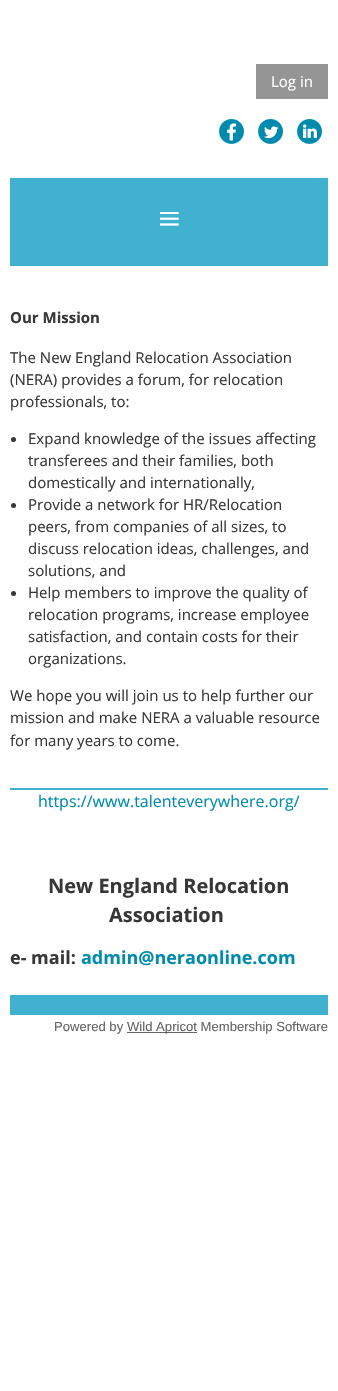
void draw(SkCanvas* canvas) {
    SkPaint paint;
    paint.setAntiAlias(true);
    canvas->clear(0xFFFFFFFF);
    paint.setColor(0xFF959595);
    canvas->drawRect(SkRect::MakeXYWH(256, 64, 72, 35), paint);
    SkFont font1(fontMgr->matchFamilyStyle("Open Sans", SkFontStyle::Normal()), 15);
    font1.setSubpixel(true);
    paint.setColor(0xFFFFFFFF);
    canvas->drawString("Log in", 271, 87, font1, paint);
    canvas->drawImageRect(SkImages::DeferredFromEncodedData(SkData::MakeFromFileName("img1.png")), SkRect::MakeXYWH(219, 119, 25, 25), SkSamplingOptions());
    canvas->drawImageRect(SkImages::DeferredFromEncodedData(SkData::MakeFromFileName("img2.png")), SkRect::MakeXYWH(258, 119, 25, 25), SkSamplingOptions());
    canvas->drawImageRect(SkImages::DeferredFromEncodedData(SkData::MakeFromFileName("img3.png")), SkRect::MakeXYWH(297, 119, 25, 25), SkSamplingOptions());
    paint.setColor(0xFF40B2CF);
    canvas->drawRect(SkRect::MakeXYWH(10, 178, 318, 88), paint);
    SkFont font2(fontMgr->matchFamilyStyle("Liberation Serif", SkFontStyle::Normal()), 40);
    font2.setSubpixel(true);
    paint.setColor(0xFFFFFFFF);
    canvas->drawString("≡", 158, 232, font2, paint);
    SkFont font3(fontMgr->matchFamilyStyle("Open Sans", SkFontStyle::Bold()), 15);
    font3.setSubpixel(true);
    paint.setColor(0xFF373737);
    canvas->drawString("Our Mission", 10, 323, font3, paint);
    canvas->drawString("The New England Relocation Association", 10, 363, font1, paint);
    canvas->drawString("(NERA) provides a forum, for relocation", 10, 385, font1, paint);
    canvas->drawString("professionals, to:", 10, 407, font1, paint);
    canvas->drawCircle(13.5f, 439.5f, 2.5f, paint);
    canvas->drawString("Expand knowledge of the issues affecting", 28, 444, font1, paint);
    canvas->drawString("transferees and their families, both", 28, 466, font1, paint);
    canvas->drawString("domestically and internationally,", 28, 488, font1, paint);
    canvas->drawCircle(13.5f, 505.5f, 2.5f, paint);
    canvas->drawString("Provide a network for HR/Relocation", 28, 510, font1, paint);
    canvas->drawString("peers, from companies of all sizes, to", 28, 532, font1, paint);
    canvas->drawString("discuss relocation ideas, challenges, and", 28, 554, font1, paint);
    canvas->drawString("solutions, and", 28, 576, font1, paint);
    canvas->drawCircle(13.5f, 593.5f, 2.5f, paint);
    canvas->drawString("Help members to improve the quality of", 28, 598, font1, paint);
    canvas->drawString("relocation programs, increase employee", 28, 620, font1, paint);
    canvas->drawString("satisfaction, and contain costs for their", 28, 642, font1, paint);
    canvas->drawString("organizations.", 28, 664, font1, paint);
    canvas->drawString("We hope you will join us to help further our", 10, 701, font1, paint);
    canvas->drawString("mission and make NERA a valuable resource", 10, 723, font1, paint);
    canvas->drawString("for many years to come.", 10, 746, font1, paint);
    paint.setColor(0xFF40B2CF);
    canvas->drawRect(SkRect::MakeXYWH(10, 788, 318, 227), paint);
    paint.setColor(0xFFFFFFFF);
    canvas->drawRect(SkRect::MakeXYWH(10, 790, 318, 205), paint);
    SkFont font4(fontMgr->matchFamilyStyle("Open Sans", SkFontStyle::Normal()), 16);
    font4.setSubpixel(true);
    paint.setColor(0xFF008BAE);
    canvas->drawString("https://www.talenteverywhere.org/", 38, 807, font4, paint);
    SkFont font5(fontMgr->matchFamilyStyle("Open Sans", SkFontStyle::Bold()), 20);
    font5.setSubpixel(true);
    paint.setColor(0xFF373737);
    canvas->drawString("New England Relocation", 48, 893, font5, paint);
    canvas->drawString("Association", 109, 922, font5, paint);
    SkFont font6(fontMgr->matchFamilyStyle("Open Sans", SkFontStyle::Bold()), 18);
    font6.setSubpixel(true);
    canvas->drawString("e- mail:", 10, 964, font6, paint);
    paint.setColor(0xFF008BAE);
    canvas->drawString("admin@neraonline.com", 81, 964, font6, paint);
    SkFont font7(fontMgr->matchFamilyStyle("Liberation Sans", SkFontStyle::Normal()), 13.1f);
    font7.setSubpixel(true);
    paint.setColor(0xFF646464);
    canvas->drawString("Powered by", 54, 1031, font7, paint);
    canvas->drawRect(SkRect::MakeXYWH(127, 1032, 70, 1), paint);
    canvas->drawString("Wild Apricot Membership Software", 127, 1031, font7, paint);
}
